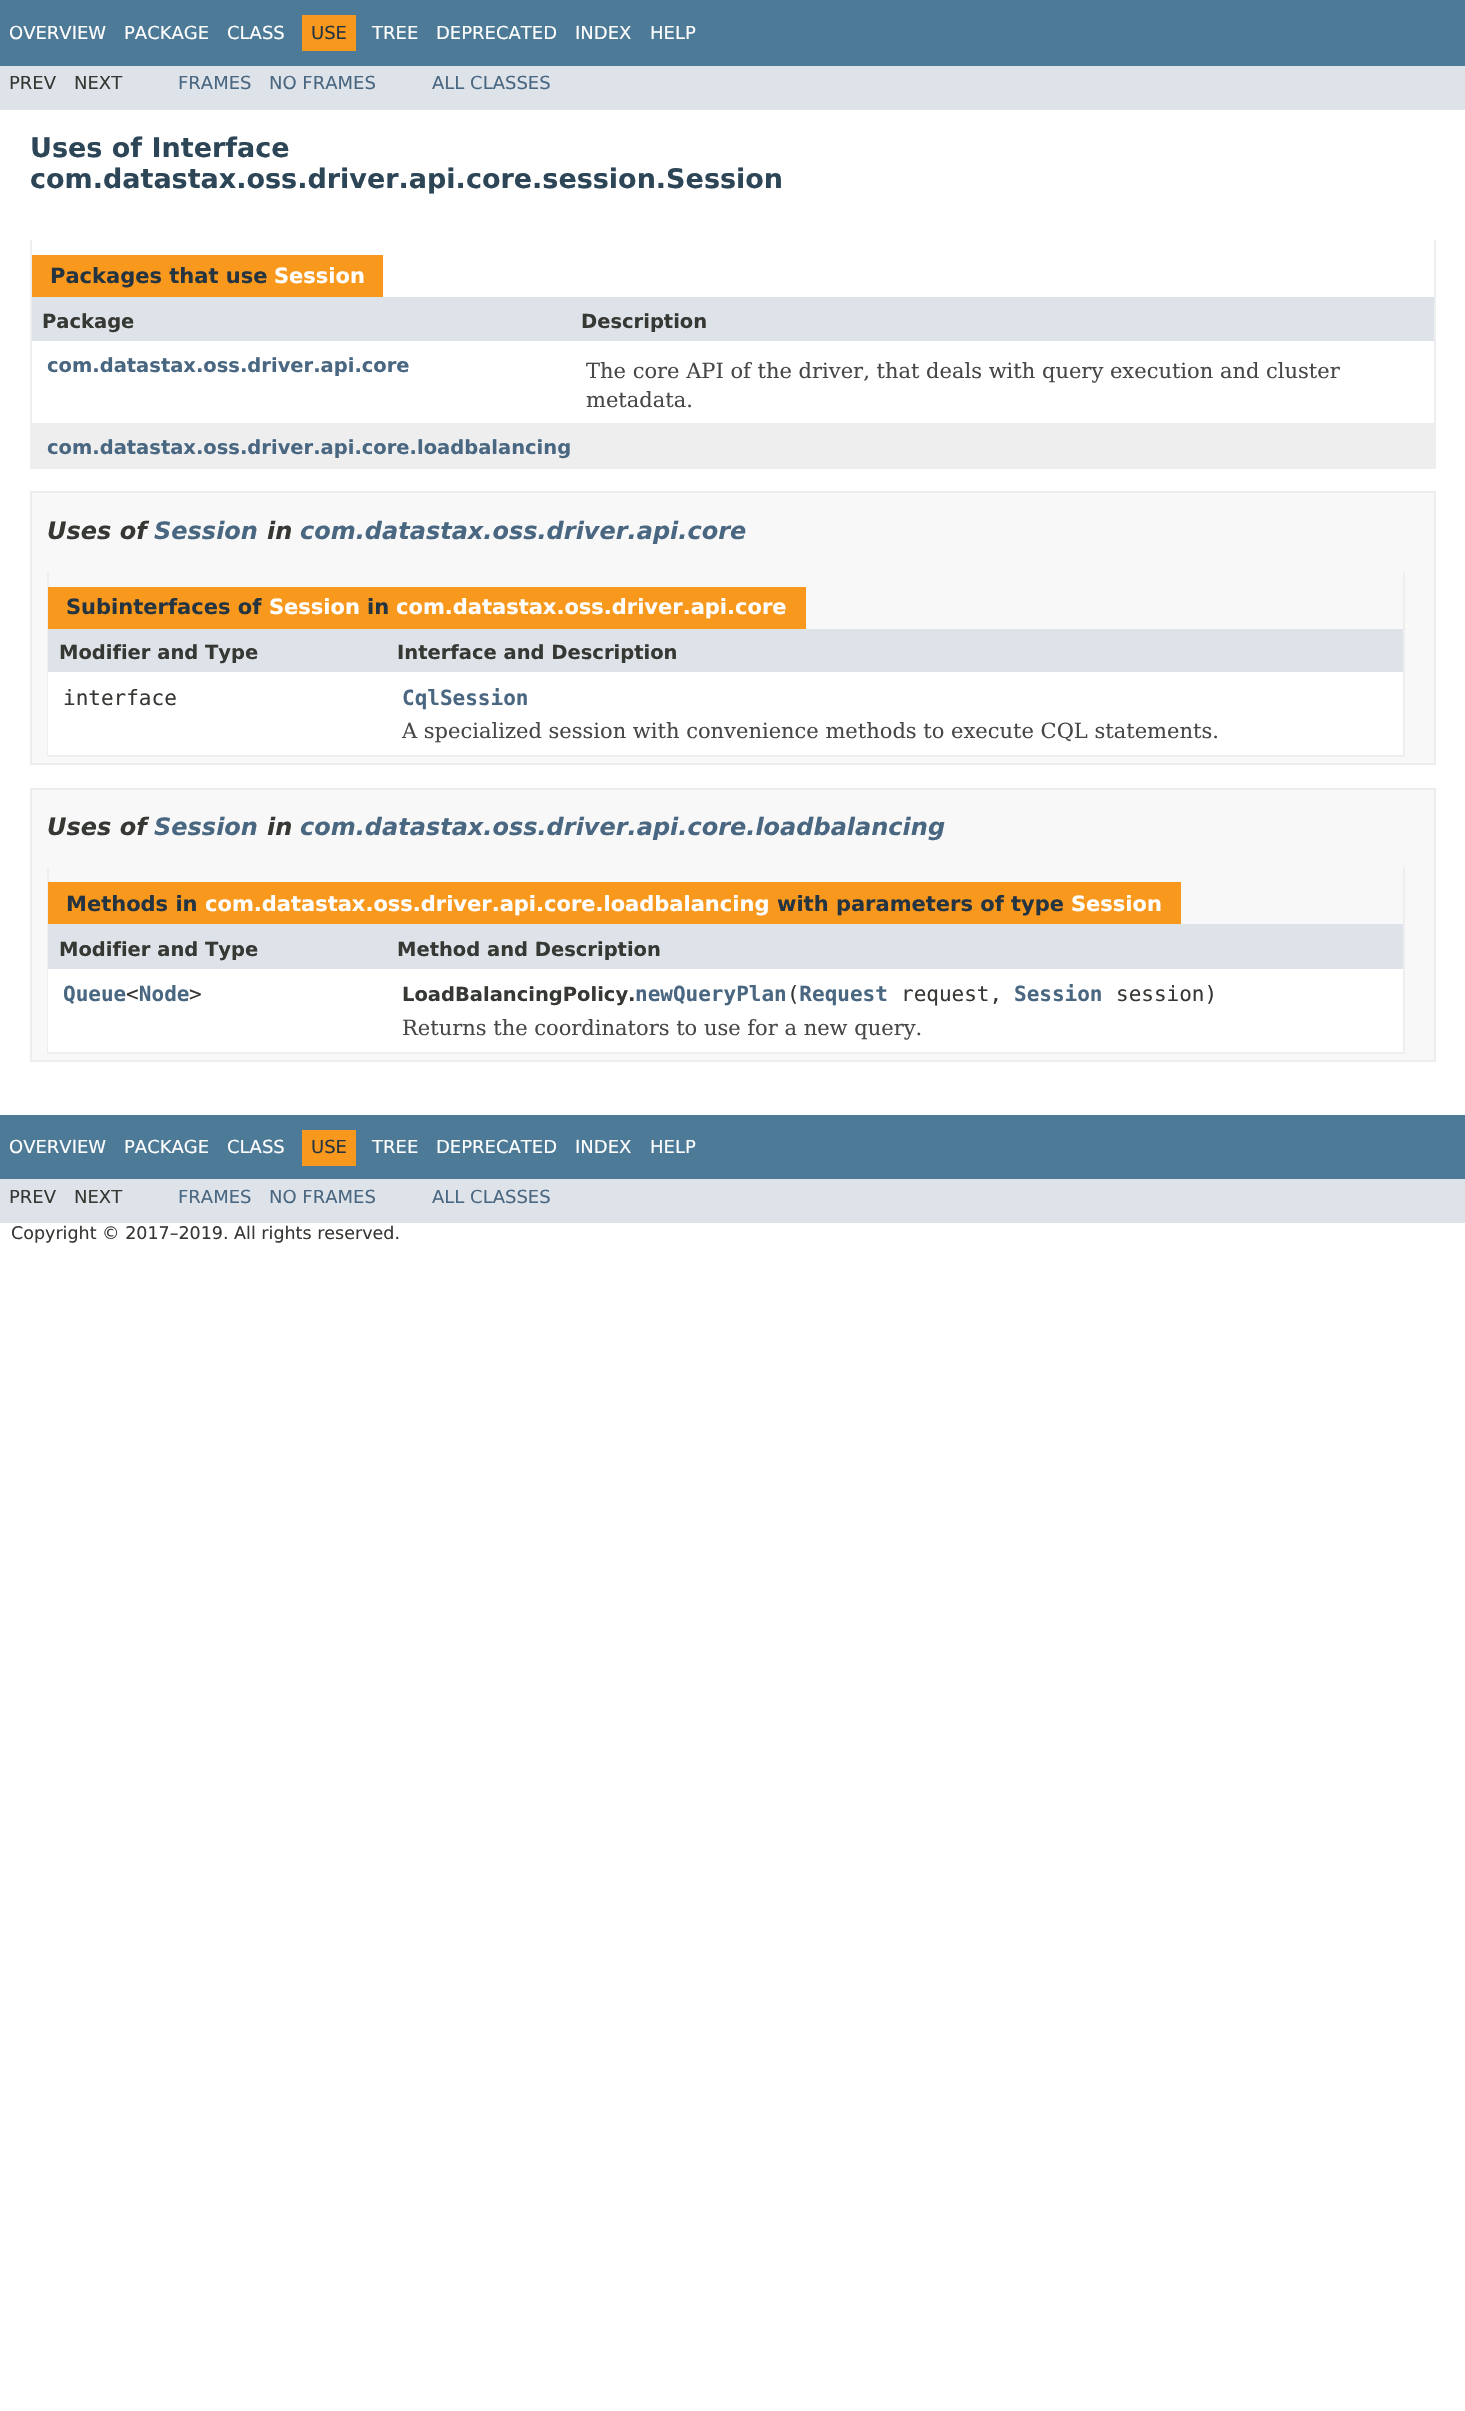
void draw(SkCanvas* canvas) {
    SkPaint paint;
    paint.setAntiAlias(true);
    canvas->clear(0xFFFFFFFF);
    paint.setColor(0xFF4D7A97);
    canvas->drawRect(SkRect::MakeXYWH(0, 0, 1465, 66), paint);
    SkFont font1(fontMgr->matchFamilyStyle("DejaVu Sans", SkFontStyle::Normal()), 18);
    font1.setSubpixel(true);
    paint.setColor(0xFFFFFFFF);
    canvas->drawString("OVERVIEW", 9, 39, font1, paint);
    canvas->drawString("PACKAGE", 124, 39, font1, paint);
    canvas->drawString("CLASS", 227, 39, font1, paint);
    paint.setColor(0xFFF8981D);
    canvas->drawRect(SkRect::MakeXYWH(302, 15, 54, 36), paint);
    paint.setColor(0xFF253441);
    canvas->drawString("USE", 311, 39, font1, paint);
    paint.setColor(0xFFFFFFFF);
    canvas->drawString("TREE", 372, 39, font1, paint);
    canvas->drawString("DEPRECATED", 436, 39, font1, paint);
    canvas->drawString("INDEX", 575, 39, font1, paint);
    canvas->drawString("HELP", 650, 39, font1, paint);
    paint.setColor(0xFFDEE3E9);
    canvas->drawRect(SkRect::MakeXYWH(0, 66, 1465, 44), paint);
    paint.setColor(0xFF353833);
    canvas->drawString("PREV", 9, 89, font1, paint);
    canvas->drawString("NEXT", 74, 89, font1, paint);
    paint.setColor(0xFF4A6782);
    canvas->drawString("FRAMES", 178, 89, font1, paint);
    canvas->drawString("NO FRAMES", 269, 89, font1, paint);
    canvas->drawString("ALL CLASSES", 432, 89, font1, paint);
    SkFont font2(fontMgr->matchFamilyStyle("DejaVu Sans", SkFontStyle::Bold()), 27);
    font2.setSubpixel(true);
    paint.setColor(0xFF2C4557);
    canvas->drawString("Uses of Interface", 30, 157, font2, paint);
    canvas->drawString("com.datastax.oss.driver.api.core.session.Session", 30, 188, font2, paint);
    paint.setColor(0xFFEEEEEE);
    canvas->drawRect(SkRect::MakeXYWH(1434, 240, 2, 228), paint);
    canvas->drawRect(SkRect::MakeXYWH(30, 467, 1406, 2), paint);
    canvas->drawRect(SkRect::MakeXYWH(30, 240, 2, 228), paint);
    paint.setColor(0xFFF8981D);
    canvas->drawRect(SkRect::MakeXYWH(32, 255, 351, 42), paint);
    SkFont font3(fontMgr->matchFamilyStyle("DejaVu Sans", SkFontStyle::Bold()), 21);
    font3.setSubpixel(true);
    paint.setColor(0xFF253441);
    canvas->drawString("Packages that use", 50, 283, font3, paint);
    paint.setColor(0xFFFFFFFF);
    canvas->drawString("Session", 274, 283, font3, paint);
    paint.setColor(0xFFDEE3E9);
    canvas->drawRect(SkRect::MakeXYWH(32, 297, 1402, 44), paint);
    SkFont font4(fontMgr->matchFamilyStyle("DejaVu Sans", SkFontStyle::Bold()), 19.5f);
    font4.setSubpixel(true);
    paint.setColor(0xFF353833);
    canvas->drawString("Package", 42, 328, font4, paint);
    canvas->drawString("Description", 581, 328, font4, paint);
    paint.setColor(0xFF4A6782);
    canvas->drawString("com.datastax.oss.driver.api.core", 47, 372, font4, paint);
    SkFont font5(fontMgr->matchFamilyStyle("DejaVu Serif", SkFontStyle::Normal()), 21);
    font5.setSubpixel(true);
    paint.setColor(0xFF474747);
    canvas->drawString("The core API of the driver, that deals with query execution and cluster", 586, 378, font5, paint);
    canvas->drawString("metadata.", 586, 407, font5, paint);
    paint.setColor(0xFFEEEEEF);
    canvas->drawRect(SkRect::MakeXYWH(32, 423, 1402, 44), paint);
    paint.setColor(0xFF4A6782);
    canvas->drawString("com.datastax.oss.driver.api.core.loadbalancing", 47, 454, font4, paint);
    paint.setColor(0xFFF8F8F8);
    canvas->drawRect(SkRect::MakeXYWH(31, 492, 1404, 272), paint);
    paint.setStyle(SkPaint::kStroke_Style);
    paint.setStrokeWidth(2);
    paint.setColor(0xFFEDEDED);
    canvas->drawRect(SkRect::MakeXYWH(31, 492, 1404, 272), paint);
    SkFont font6(fontMgr->matchFamilyStyle("DejaVu Sans", SkFontStyle::BoldItalic()), 24);
    font6.setSubpixel(true);
    paint.setStyle(SkPaint::kFill_Style);
    paint.setColor(0xFF353833);
    canvas->drawString("Uses of", 47, 539, font6, paint);
    paint.setColor(0xFF4A6782);
    canvas->drawString("Session", 154, 539, font6, paint);
    paint.setColor(0xFF353833);
    canvas->drawString("in", 267, 539, font6, paint);
    paint.setColor(0xFF4A6782);
    canvas->drawString("com.datastax.oss.driver.api.core", 300, 539, font6, paint);
    paint.setColor(0xFFEEEEEE);
    canvas->drawRect(SkRect::MakeXYWH(1403, 572, 2, 184), paint);
    canvas->drawRect(SkRect::MakeXYWH(47, 755, 1357, 2), paint);
    canvas->drawRect(SkRect::MakeXYWH(47, 572, 2, 184), paint);
    paint.setColor(0xFFF8981D);
    canvas->drawRect(SkRect::MakeXYWH(48, 587, 758, 42), paint);
    paint.setColor(0xFF253441);
    canvas->drawString("Subinterfaces of", 66, 614, font3, paint);
    paint.setColor(0xFFFFFFFF);
    canvas->drawString("Session", 269, 614, font3, paint);
    paint.setColor(0xFF253441);
    canvas->drawString("in", 367, 614, font3, paint);
    paint.setColor(0xFFFFFFFF);
    canvas->drawString("com.datastax.oss.driver.api.core", 396, 614, font3, paint);
    paint.setColor(0xFFDEE3E9);
    canvas->drawRect(SkRect::MakeXYWH(48, 629, 1355, 43), paint);
    paint.setColor(0xFF353833);
    canvas->drawString("Modifier and Type", 59, 659, font4, paint);
    canvas->drawString("Interface and Description", 397, 659, font4, paint);
    paint.setColor(0xFFFFFFFF);
    canvas->drawRect(SkRect::MakeXYWH(48, 672, 1355, 83), paint);
    SkFont font7(fontMgr->matchFamilyStyle("DejaVu Sans Mono", SkFontStyle::Normal()), 21);
    font7.setSubpixel(true);
    paint.setColor(0xFF353833);
    canvas->drawString("interface", 63, 705, font7, paint);
    SkFont font8(fontMgr->matchFamilyStyle("DejaVu Sans Mono", SkFontStyle::Bold()), 21);
    font8.setSubpixel(true);
    paint.setColor(0xFF4A6782);
    canvas->drawString("CqlSession", 402, 705, font8, paint);
    paint.setColor(0xFF474747);
    canvas->drawString("A specialized session with convenience methods to execute CQL statements.", 402, 738, font5, paint);
    paint.setColor(0xFFF8F8F8);
    canvas->drawRect(SkRect::MakeXYWH(31, 789, 1404, 272), paint);
    paint.setStyle(SkPaint::kStroke_Style);
    paint.setColor(0xFFEDEDED);
    canvas->drawRect(SkRect::MakeXYWH(31, 789, 1404, 272), paint);
    paint.setStyle(SkPaint::kFill_Style);
    paint.setColor(0xFF353833);
    canvas->drawString("Uses of", 47, 835, font6, paint);
    paint.setColor(0xFF4A6782);
    canvas->drawString("Session", 154, 835, font6, paint);
    paint.setColor(0xFF353833);
    canvas->drawString("in", 267, 835, font6, paint);
    paint.setColor(0xFF4A6782);
    canvas->drawString("com.datastax.oss.driver.api.core.loadbalancing", 300, 835, font6, paint);
    paint.setColor(0xFFEEEEEE);
    canvas->drawRect(SkRect::MakeXYWH(1403, 867, 2, 186), paint);
    canvas->drawRect(SkRect::MakeXYWH(47, 1052, 1357, 2), paint);
    canvas->drawRect(SkRect::MakeXYWH(47, 867, 2, 186), paint);
    paint.setColor(0xFFF8981D);
    canvas->drawRect(SkRect::MakeXYWH(48, 882, 1133, 42), paint);
    paint.setColor(0xFF253441);
    canvas->drawString("Methods in", 66, 911, font3, paint);
    paint.setColor(0xFFFFFFFF);
    canvas->drawString("com.datastax.oss.driver.api.core.loadbalancing", 205, 911, font3, paint);
    paint.setColor(0xFF253441);
    canvas->drawString("with parameters of type", 777, 911, font3, paint);
    paint.setColor(0xFFFFFFFF);
    canvas->drawString("Session", 1071, 911, font3, paint);
    paint.setColor(0xFFDEE3E9);
    canvas->drawRect(SkRect::MakeXYWH(48, 924, 1355, 45), paint);
    paint.setColor(0xFF353833);
    canvas->drawString("Modifier and Type", 59, 956, font4, paint);
    canvas->drawString("Method and Description", 397, 956, font4, paint);
    paint.setColor(0xFFFFFFFF);
    canvas->drawRect(SkRect::MakeXYWH(48, 969, 1355, 83), paint);
    paint.setColor(0xFF4A6782);
    canvas->drawString("Queue Node", 63, 1001, font8, paint);
    paint.setColor(0xFF353833);
    canvas->drawString("<", 126, 1001, font7, paint);
    canvas->drawString(">", 189, 1001, font7, paint);
    paint.setColor(0xFF4A6782);
    canvas->drawString("newQueryPlan Request", 635, 1001, font8, paint);
    canvas->drawString("Session", 1014, 1001, font8, paint);
    paint.setColor(0xFF353833);
    canvas->drawString("LoadBalancingPolicy.", 402, 1001, font4, paint);
    canvas->drawString("(", 787, 1001, font7, paint);
    canvas->drawString("request,", 901, 1001, font7, paint);
    canvas->drawString("session)", 1116, 1001, font7, paint);
    paint.setColor(0xFF474747);
    canvas->drawString("Returns the coordinators to use for a new query.", 402, 1035, font5, paint);
    paint.setColor(0xFF4D7A97);
    canvas->drawRect(SkRect::MakeXYWH(0, 1115, 1465, 64), paint);
    paint.setColor(0xFFFFFFFF);
    canvas->drawString("OVERVIEW", 9, 1153, font1, paint);
    canvas->drawString("PACKAGE", 124, 1153, font1, paint);
    canvas->drawString("CLASS", 227, 1153, font1, paint);
    paint.setColor(0xFFF8981D);
    canvas->drawRect(SkRect::MakeXYWH(302, 1130, 54, 36), paint);
    paint.setColor(0xFF253441);
    canvas->drawString("USE", 311, 1153, font1, paint);
    paint.setColor(0xFFFFFFFF);
    canvas->drawString("TREE", 372, 1153, font1, paint);
    canvas->drawString("DEPRECATED", 436, 1153, font1, paint);
    canvas->drawString("INDEX", 575, 1153, font1, paint);
    canvas->drawString("HELP", 650, 1153, font1, paint);
    paint.setColor(0xFFDEE3E9);
    canvas->drawRect(SkRect::MakeXYWH(0, 1179, 1465, 44), paint);
    paint.setColor(0xFF353833);
    canvas->drawString("PREV", 9, 1203, font1, paint);
    canvas->drawString("NEXT", 74, 1203, font1, paint);
    paint.setColor(0xFF4A6782);
    canvas->drawString("FRAMES", 178, 1203, font1, paint);
    canvas->drawString("NO FRAMES", 269, 1203, font1, paint);
    canvas->drawString("ALL CLASSES", 432, 1203, font1, paint);
    SkFont font9(fontMgr->matchFamilyStyle("DejaVu Sans", SkFontStyle::Normal()), 17.5f);
    font9.setSubpixel(true);
    paint.setColor(0xFF353833);
    canvas->drawString("Copyright © 2017–2019. All rights reserved.", 11, 1239, font9, paint);
}
